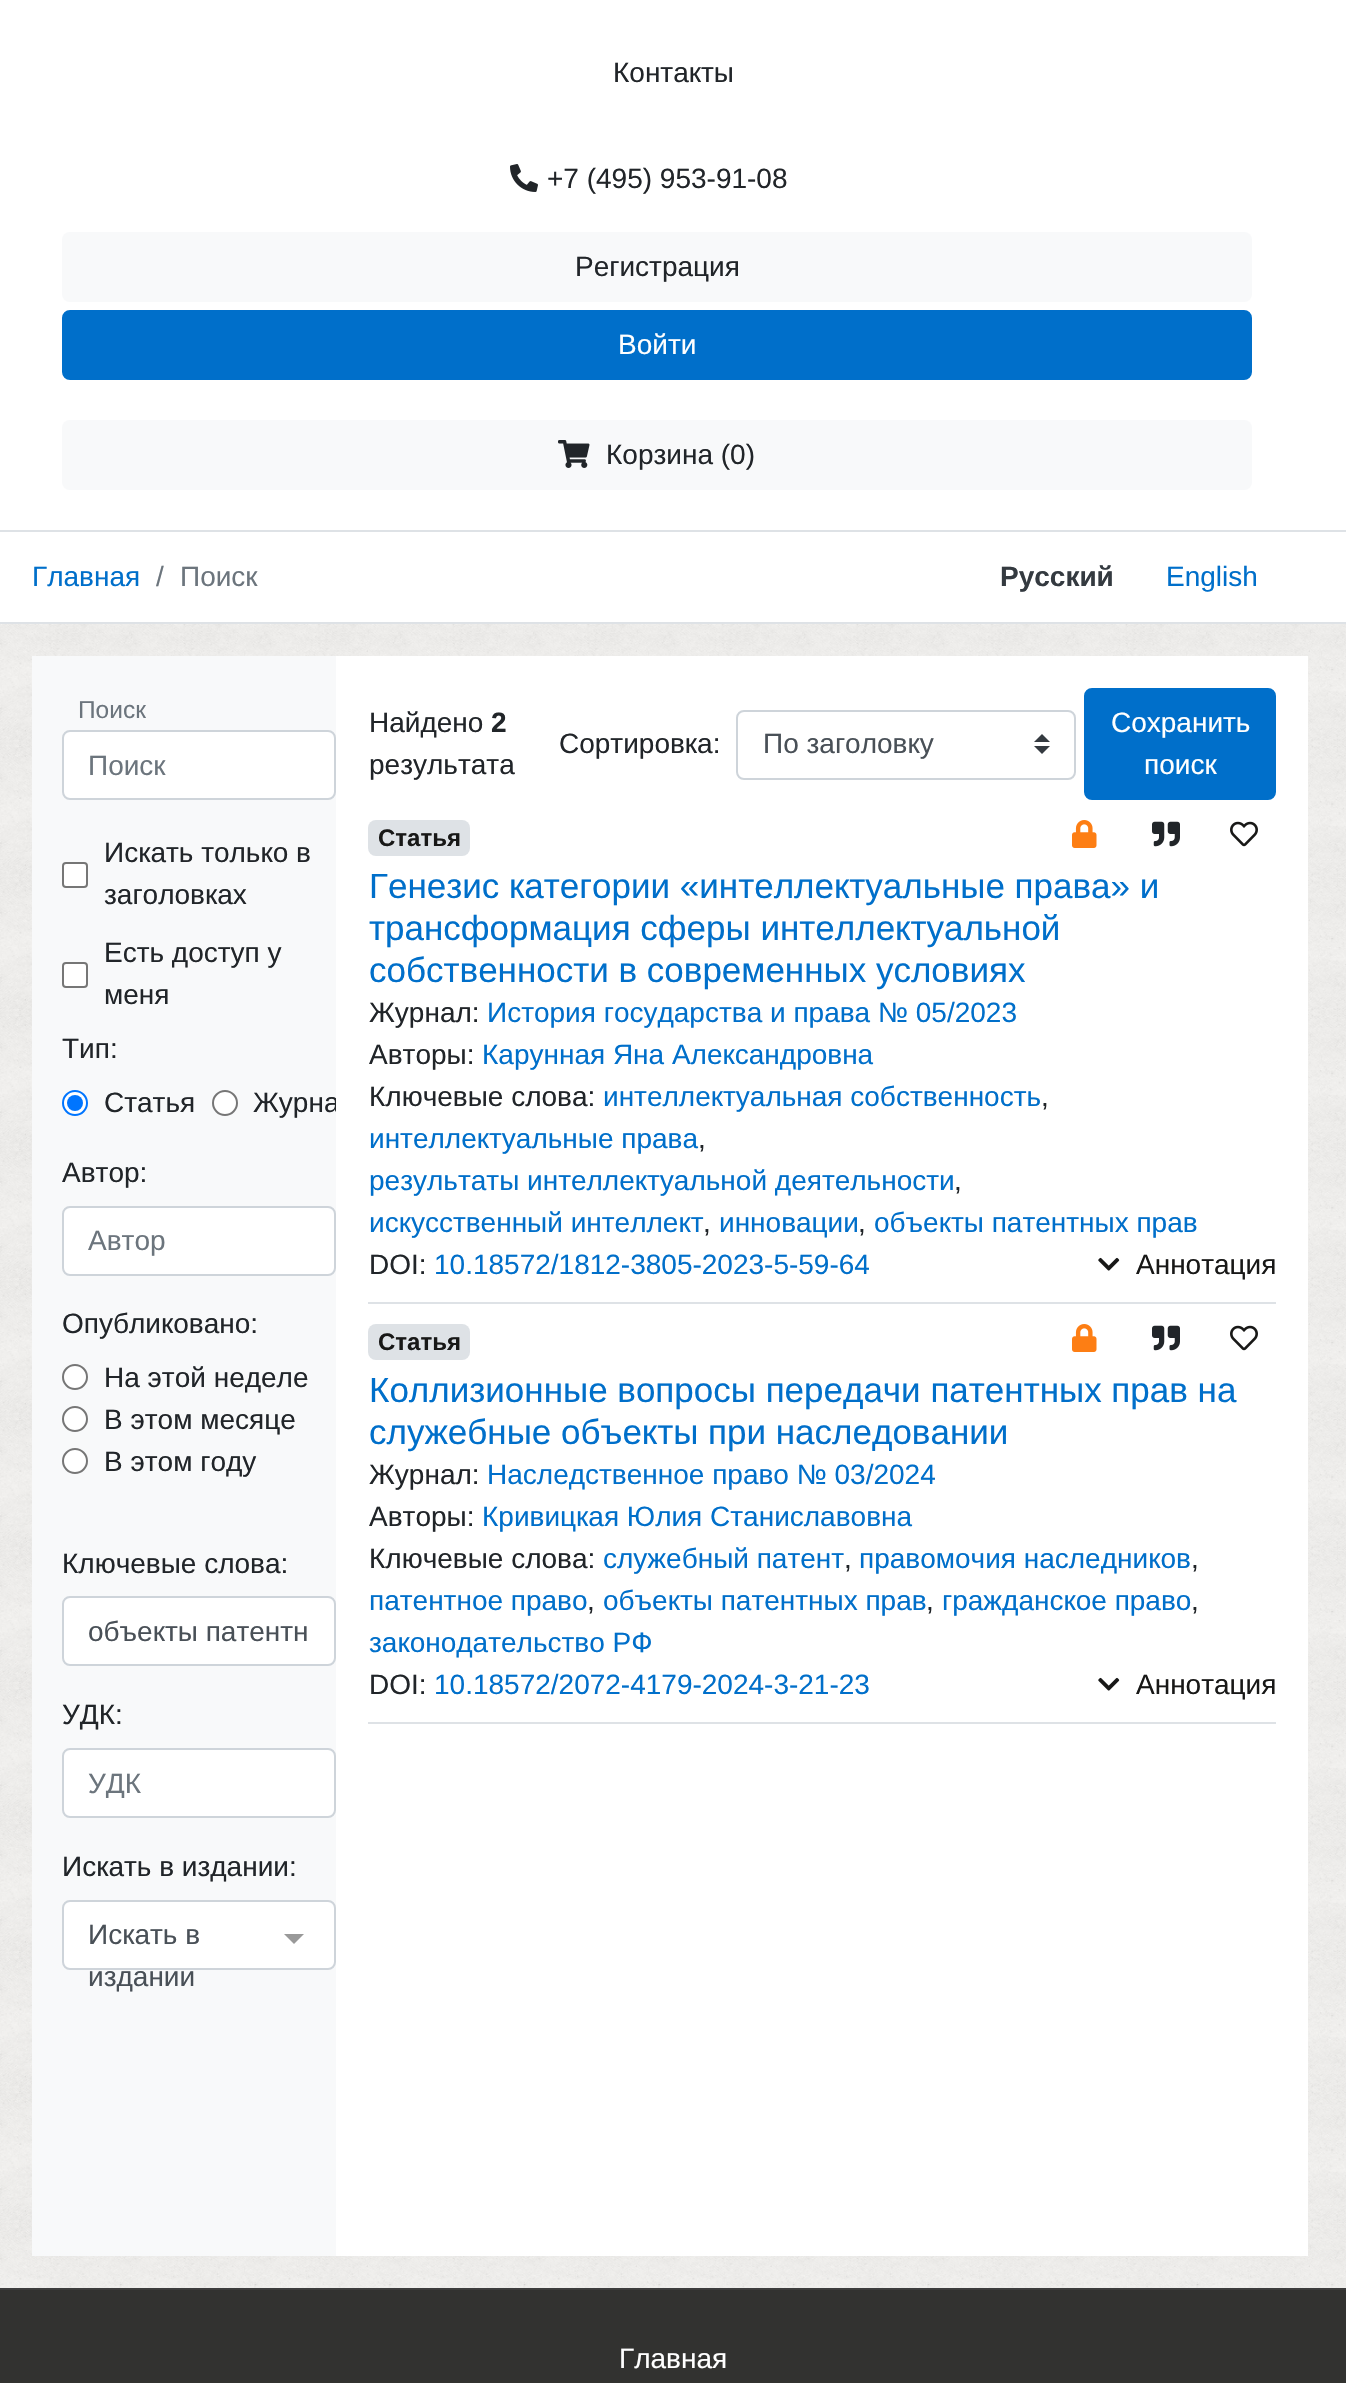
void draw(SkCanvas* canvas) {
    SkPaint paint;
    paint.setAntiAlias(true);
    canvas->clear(0xFFFFFFFF);
    SkFont font1(fontMgr->matchFamilyStyle("Liberation Sans", SkFontStyle::Normal()), 28);
    font1.setSubpixel(true);
    paint.setColor(0xFF212529);
    canvas->drawString("Контакты", 613, 82, font1, paint);
    canvas->drawImageRect(SkImages::DeferredFromEncodedData(SkData::MakeFromFileName("img1.png")), SkRect::MakeXYWH(510, 164, 28, 28), SkSamplingOptions());
    canvas->drawString("+7 (495) 953-91-08", 547, 188, font1, paint);
    paint.setColor(0xFFF8F9FA);
    canvas->drawRoundRect(SkRect::MakeXYWH(62, 232, 1190, 70), 8, 8, paint);
    paint.setColor(0xFF212529);
    canvas->drawString("Регистрация", 575, 276, font1, paint);
    paint.setColor(0xFF006FCA);
    canvas->drawRoundRect(SkRect::MakeXYWH(63, 311, 1188, 68), 7, 7, paint);
    paint.setStyle(SkPaint::kStroke_Style);
    paint.setStrokeWidth(2);
    canvas->drawRoundRect(SkRect::MakeXYWH(63, 311, 1188, 68), 7, 7, paint);
    paint.setStyle(SkPaint::kFill_Style);
    paint.setColor(0xFFFFFFFF);
    canvas->drawString("Войти", 618, 354, font1, paint);
    paint.setColor(0xFFF8F9FA);
    canvas->drawRoundRect(SkRect::MakeXYWH(62, 420, 1190, 70), 8, 8, paint);
    canvas->drawImageRect(SkImages::DeferredFromEncodedData(SkData::MakeFromFileName("img2.png")), SkRect::MakeXYWH(558, 440, 32, 28), SkSamplingOptions());
    paint.setColor(0xFF212529);
    canvas->drawString("Корзина (0)", 606, 464, font1, paint);
    paint.setColor(0xFFDEE2E6);
    canvas->drawRect(SkRect::MakeXYWH(0, 530, 1346, 2), paint);
    canvas->drawRect(SkRect::MakeXYWH(0, 622, 1346, 2), paint);
    paint.setColor(0xFF006FCA);
    canvas->drawString("Главная", 32, 586, font1, paint);
    paint.setColor(0xFF6C757D);
    canvas->drawString("/", 156, 586, font1, paint);
    canvas->drawString("Поиск", 180, 586, font1, paint);
    SkFont font2(fontMgr->matchFamilyStyle("Liberation Sans", SkFontStyle::Bold()), 28);
    font2.setSubpixel(true);
    paint.setColor(0xFF343A40);
    canvas->drawString("Русский", 1000, 586, font2, paint);
    paint.setColor(0xFF006FCA);
    canvas->drawString("English", 1166, 586, font1, paint);
    canvas->drawImageRect(SkImages::DeferredFromEncodedData(SkData::MakeFromFileName("img3.png")), SkRect::MakeXYWH(0, 624, 1346, 1664), SkSamplingOptions());
    paint.setColor(0xFFF8F9FA);
    canvas->drawRect(SkRect::MakeXYWH(32, 656, 304, 1600), paint);
    SkFont font3(fontMgr->matchFamilyStyle("Liberation Sans", SkFontStyle::Normal()), 24.5f);
    font3.setSubpixel(true);
    paint.setColor(0xFF6C757D);
    canvas->drawString("Поиск", 78, 718, font3, paint);
    paint.setColor(0xFFFFFFFF);
    canvas->drawRoundRect(SkRect::MakeXYWH(63, 731, 272, 68), 7, 7, paint);
    paint.setStyle(SkPaint::kStroke_Style);
    paint.setColor(0xFFCED4DA);
    canvas->drawRoundRect(SkRect::MakeXYWH(63, 731, 272, 68), 7, 7, paint);
    paint.setStyle(SkPaint::kFill_Style);
    paint.setColor(0xFF6C757D);
    canvas->drawString("Поиск", 88, 775, font1, paint);
    paint.setColor(0xFFFFFFFF);
    canvas->drawRoundRect(SkRect::MakeXYWH(63, 863, 24, 24), 3, 3, paint);
    paint.setStyle(SkPaint::kStroke_Style);
    paint.setColor(0xFF767676);
    canvas->drawRoundRect(SkRect::MakeXYWH(63, 863, 24, 24), 3, 3, paint);
    paint.setStyle(SkPaint::kFill_Style);
    paint.setColor(0xFF212529);
    canvas->drawString("Искать только в", 104, 862, font1, paint);
    canvas->drawString("заголовках", 104, 904, font1, paint);
    paint.setColor(0xFFFFFFFF);
    canvas->drawRoundRect(SkRect::MakeXYWH(63, 963, 24, 24), 3, 3, paint);
    paint.setStyle(SkPaint::kStroke_Style);
    paint.setColor(0xFF767676);
    canvas->drawRoundRect(SkRect::MakeXYWH(63, 963, 24, 24), 3, 3, paint);
    paint.setStyle(SkPaint::kFill_Style);
    paint.setColor(0xFF212529);
    canvas->drawString("Есть доступ у", 104, 962, font1, paint);
    canvas->drawString("меня", 104, 1004, font1, paint);
    canvas->drawString("Тип:", 62, 1058, font1, paint);
    paint.setColor(0xFFFFFFFF);
    canvas->drawCircle(75, 1103, 12, paint);
    paint.setStyle(SkPaint::kStroke_Style);
    paint.setColor(0xFF0075FF);
    canvas->drawCircle(75, 1103, 12, paint);
    paint.setStyle(SkPaint::kFill_Style);
    canvas->drawCircle(75, 1103, 8, paint);
    paint.setColor(0xFF212529);
    canvas->drawString("Статья", 104, 1112, font1, paint);
    paint.setColor(0xFFFFFFFF);
    canvas->drawCircle(225, 1103, 12, paint);
    paint.setStyle(SkPaint::kStroke_Style);
    paint.setColor(0xFF767676);
    canvas->drawCircle(225, 1103, 12, paint);
    paint.setStyle(SkPaint::kFill_Style);
    paint.setColor(0xFF212529);
    canvas->drawString("Журна", 253, 1112, font1, paint);
    canvas->drawString("Автор:", 62, 1182, font1, paint);
    paint.setColor(0xFFFFFFFF);
    canvas->drawRoundRect(SkRect::MakeXYWH(63, 1207, 272, 68), 7, 7, paint);
    paint.setStyle(SkPaint::kStroke_Style);
    paint.setColor(0xFFCED4DA);
    canvas->drawRoundRect(SkRect::MakeXYWH(63, 1207, 272, 68), 7, 7, paint);
    paint.setStyle(SkPaint::kFill_Style);
    paint.setColor(0xFF6C757D);
    canvas->drawString("Автор", 88, 1250, font1, paint);
    paint.setColor(0xFF212529);
    canvas->drawString("Опубликовано:", 62, 1333, font1, paint);
    paint.setColor(0xFFFFFFFF);
    canvas->drawCircle(75, 1377, 12, paint);
    paint.setStyle(SkPaint::kStroke_Style);
    paint.setColor(0xFF767676);
    canvas->drawCircle(75, 1377, 12, paint);
    paint.setStyle(SkPaint::kFill_Style);
    paint.setColor(0xFF212529);
    canvas->drawString("На этой неделе", 104, 1387, font1, paint);
    paint.setColor(0xFFFFFFFF);
    canvas->drawCircle(75, 1419, 12, paint);
    paint.setStyle(SkPaint::kStroke_Style);
    paint.setColor(0xFF767676);
    canvas->drawCircle(75, 1419, 12, paint);
    paint.setStyle(SkPaint::kFill_Style);
    paint.setColor(0xFF212529);
    canvas->drawString("В этом месяце", 104, 1429, font1, paint);
    paint.setColor(0xFFFFFFFF);
    canvas->drawCircle(75, 1461, 12, paint);
    paint.setStyle(SkPaint::kStroke_Style);
    paint.setColor(0xFF767676);
    canvas->drawCircle(75, 1461, 12, paint);
    paint.setStyle(SkPaint::kFill_Style);
    paint.setColor(0xFF212529);
    canvas->drawString("В этом году", 104, 1471, font1, paint);
    canvas->drawString("Ключевые слова:", 62, 1573, font1, paint);
    paint.setColor(0xFFFFFFFF);
    canvas->drawRoundRect(SkRect::MakeXYWH(63, 1597, 272, 68), 7, 7, paint);
    paint.setStyle(SkPaint::kStroke_Style);
    paint.setColor(0xFFCED4DA);
    canvas->drawRoundRect(SkRect::MakeXYWH(63, 1597, 272, 68), 7, 7, paint);
    paint.setStyle(SkPaint::kFill_Style);
    paint.setColor(0xFF495057);
    canvas->drawString("объекты патентн", 88, 1641, font1, paint);
    paint.setColor(0xFF212529);
    canvas->drawString("УДК:", 62, 1724, font1, paint);
    paint.setColor(0xFFFFFFFF);
    canvas->drawRoundRect(SkRect::MakeXYWH(63, 1749, 272, 68), 7, 7, paint);
    paint.setStyle(SkPaint::kStroke_Style);
    paint.setColor(0xFFCED4DA);
    canvas->drawRoundRect(SkRect::MakeXYWH(63, 1749, 272, 68), 7, 7, paint);
    canvas->save();
    canvas->clipRect(SkRect::MakeXYWH(88, 1766, 222, 32));
    paint.setStyle(SkPaint::kFill_Style);
    paint.setColor(0xFF6C757D);
    canvas->drawString("УДК", 88, 1793, font1, paint);
    canvas->restore();
    paint.setColor(0xFF212529);
    canvas->drawString("Искать в издании:", 62, 1876, font1, paint);
    paint.setColor(0xFFFFFFFF);
    canvas->drawRoundRect(SkRect::MakeXYWH(63, 1901, 272, 68), 7, 7, paint);
    paint.setStyle(SkPaint::kStroke_Style);
    paint.setColor(0xFFCED4DA);
    canvas->drawRoundRect(SkRect::MakeXYWH(63, 1901, 272, 68), 7, 7, paint);
    paint.setStyle(SkPaint::kFill_Style);
    paint.setColor(0xFF495057);
    canvas->drawString("Искать в", 88, 1944, font1, paint);
    canvas->drawString("издании", 88, 1986, font1, paint);
    paint.setColor(0xFF999999);
    canvas->drawPath(SkPathBuilder().moveTo(284, 1934).lineTo(304, 1934).lineTo(294, 1944).close().detach(), paint);
    paint.setColor(0xFFFFFFFF);
    canvas->drawRect(SkRect::MakeXYWH(336, 656, 972, 1600), paint);
    paint.setColor(0xFF212529);
    canvas->drawString("Найдено", 369, 732, font1, paint);
    canvas->drawString("2", 491, 732, font2, paint);
    canvas->drawString("результата", 369, 774, font1, paint);
    canvas->drawString("Сортировка:", 559, 753, font1, paint);
    paint.setColor(0xFF343A40);
    canvas->drawPath(SkPathBuilder().moveTo(1042, 734).lineTo(1034, 742).lineTo(1050, 742).close().moveTo(1042, 754).lineTo(1034, 746).lineTo(1050, 746).close().detach(), paint);
    paint.setStyle(SkPaint::kStroke_Style);
    paint.setColor(0xFFCED4DA);
    canvas->drawRoundRect(SkRect::MakeXYWH(737, 711, 338, 68), 7, 7, paint);
    paint.setStyle(SkPaint::kFill_Style);
    paint.setColor(0xFF495057);
    canvas->drawString("По заголовку", 763, 753, font1, paint);
    paint.setColor(0xFF006FCA);
    canvas->drawRoundRect(SkRect::MakeXYWH(1085, 689, 190, 110), 7, 7, paint);
    paint.setStyle(SkPaint::kStroke_Style);
    canvas->drawRoundRect(SkRect::MakeXYWH(1085, 689, 190, 110), 7, 7, paint);
    paint.setStyle(SkPaint::kFill_Style);
    paint.setColor(0xFFFFFFFF);
    canvas->drawString("Сохранить", 1111, 732, font1, paint);
    canvas->drawString("поиск", 1144, 774, font1, paint);
    paint.setColor(0xFFDEE2E6);
    canvas->drawRect(SkRect::MakeXYWH(368, 1302, 908, 2), paint);
    canvas->drawRoundRect(SkRect::MakeXYWH(368, 820, 102, 36), 8, 8, paint);
    SkFont font4(fontMgr->matchFamilyStyle("Liberation Sans", SkFontStyle::Bold()), 24);
    font4.setSubpixel(true);
    paint.setColor(0xFF181817);
    canvas->drawString("Статья", 378, 846, font4, paint);
    SkFont font5(fontMgr->matchFamilyStyle("Liberation Sans", SkFontStyle::Normal()), 35);
    font5.setSubpixel(true);
    paint.setColor(0xFF006FCA);
    canvas->drawString("Генезис категории «интеллектуальные права» и", 369, 898, font5, paint);
    canvas->drawString("трансформация сферы интеллектуальной", 369, 940, font5, paint);
    canvas->drawString("собственности в современных условиях", 369, 982, font5, paint);
    canvas->drawImageRect(SkImages::DeferredFromEncodedData(SkData::MakeFromFileName("img4.png")), SkRect::MakeXYWH(1072, 820, 25, 28), SkSamplingOptions());
    canvas->drawImageRect(SkImages::DeferredFromEncodedData(SkData::MakeFromFileName("img5.png")), SkRect::MakeXYWH(1152, 821, 28, 26), SkSamplingOptions());
    canvas->drawImageRect(SkImages::DeferredFromEncodedData(SkData::MakeFromFileName("img6.png")), SkRect::MakeXYWH(1230, 821, 28, 26), SkSamplingOptions());
    paint.setColor(0xFF212529);
    canvas->drawString("Журнал:", 369, 1022, font1, paint);
    paint.setColor(0xFF006FCA);
    canvas->drawString("История государства и права № 05/2023", 487, 1022, font1, paint);
    paint.setColor(0xFF212529);
    canvas->drawString("Авторы:", 369, 1064, font1, paint);
    paint.setColor(0xFF006FCA);
    canvas->drawString("Карунная Яна Александровна", 482, 1064, font1, paint);
    canvas->drawString("интеллектуальная собственность", 603, 1106, font1, paint);
    paint.setColor(0xFF212529);
    canvas->drawString(",", 1041, 1106, font1, paint);
    paint.setColor(0xFF006FCA);
    canvas->drawString("интеллектуальные права", 369, 1148, font1, paint);
    paint.setColor(0xFF212529);
    canvas->drawString(",", 698, 1148, font1, paint);
    paint.setColor(0xFF006FCA);
    canvas->drawString("результаты интеллектуальной деятельности", 369, 1190, font1, paint);
    paint.setColor(0xFF212529);
    canvas->drawString(",", 954, 1190, font1, paint);
    paint.setColor(0xFF006FCA);
    canvas->drawString("искусственный интеллект", 369, 1232, font1, paint);
    paint.setColor(0xFF212529);
    canvas->drawString(",", 703, 1232, font1, paint);
    paint.setColor(0xFF006FCA);
    canvas->drawString("инновации", 719, 1232, font1, paint);
    paint.setColor(0xFF212529);
    canvas->drawString(",", 858, 1232, font1, paint);
    paint.setColor(0xFF006FCA);
    canvas->drawString("объекты патентных прав", 874, 1232, font1, paint);
    paint.setColor(0xFF212529);
    canvas->drawString("Ключевые слова:", 369, 1106, font1, paint);
    canvas->drawString("DOI:", 369, 1274, font1, paint);
    paint.setColor(0xFF006FCA);
    canvas->drawString("10.18572/1812-3805-2023-5-59-64", 434, 1274, font1, paint);
    canvas->drawImageRect(SkImages::DeferredFromEncodedData(SkData::MakeFromFileName("img7.png")), SkRect::MakeXYWH(1098, 1257, 22, 14), SkSamplingOptions());
    paint.setColor(0xFF181817);
    canvas->drawString("Аннотация", 1136, 1274, font1, paint);
    paint.setColor(0xFFDEE2E6);
    canvas->drawRect(SkRect::MakeXYWH(368, 1722, 908, 2), paint);
    canvas->drawImageRect(SkImages::DeferredFromEncodedData(SkData::MakeFromFileName("img4.png")), SkRect::MakeXYWH(1072, 1324, 25, 28), SkSamplingOptions());
    canvas->drawImageRect(SkImages::DeferredFromEncodedData(SkData::MakeFromFileName("img5.png")), SkRect::MakeXYWH(1152, 1325, 28, 26), SkSamplingOptions());
    canvas->drawImageRect(SkImages::DeferredFromEncodedData(SkData::MakeFromFileName("img6.png")), SkRect::MakeXYWH(1230, 1325, 28, 26), SkSamplingOptions());
    canvas->drawRoundRect(SkRect::MakeXYWH(368, 1324, 102, 36), 8, 8, paint);
    paint.setColor(0xFF181817);
    canvas->drawString("Статья", 378, 1350, font4, paint);
    paint.setColor(0xFF006FCA);
    canvas->drawString("Коллизионные вопросы передачи патентных прав на", 369, 1402, font5, paint);
    canvas->drawString("служебные объекты при наследовании", 369, 1444, font5, paint);
    paint.setColor(0xFF212529);
    canvas->drawString("Журнал:", 369, 1484, font1, paint);
    paint.setColor(0xFF006FCA);
    canvas->drawString("Наследственное право № 03/2024", 487, 1484, font1, paint);
    paint.setColor(0xFF212529);
    canvas->drawString("Авторы:", 369, 1526, font1, paint);
    paint.setColor(0xFF006FCA);
    canvas->drawString("Кривицкая Юлия Станиславовна", 482, 1526, font1, paint);
    canvas->drawString("служебный патент", 603, 1568, font1, paint);
    paint.setColor(0xFF212529);
    canvas->drawString(",", 844, 1568, font1, paint);
    paint.setColor(0xFF006FCA);
    canvas->drawString("правомочия наследников", 859, 1568, font1, paint);
    paint.setColor(0xFF212529);
    canvas->drawString(",", 1191, 1568, font1, paint);
    paint.setColor(0xFF006FCA);
    canvas->drawString("патентное право", 369, 1610, font1, paint);
    paint.setColor(0xFF212529);
    canvas->drawString(",", 587, 1610, font1, paint);
    paint.setColor(0xFF006FCA);
    canvas->drawString("объекты патентных прав", 603, 1610, font1, paint);
    paint.setColor(0xFF212529);
    canvas->drawString(",", 926, 1610, font1, paint);
    paint.setColor(0xFF006FCA);
    canvas->drawString("гражданское право", 942, 1610, font1, paint);
    paint.setColor(0xFF212529);
    canvas->drawString(",", 1191, 1610, font1, paint);
    paint.setColor(0xFF006FCA);
    canvas->drawString("законодательство РФ", 369, 1652, font1, paint);
    paint.setColor(0xFF212529);
    canvas->drawString("Ключевые слова:", 369, 1568, font1, paint);
    canvas->drawString("DOI:", 369, 1694, font1, paint);
    paint.setColor(0xFF006FCA);
    canvas->drawString("10.18572/2072-4179-2024-3-21-23", 434, 1694, font1, paint);
    canvas->drawImageRect(SkImages::DeferredFromEncodedData(SkData::MakeFromFileName("img7.png")), SkRect::MakeXYWH(1098, 1677, 22, 14), SkSamplingOptions());
    paint.setColor(0xFF181817);
    canvas->drawString("Аннотация", 1136, 1694, font1, paint);
    paint.setColor(0xFF3D3D3D);
    canvas->drawRect(SkRect::MakeXYWH(0, 2288, 1346, 2), paint);
    paint.setColor(0xFF323230);
    canvas->drawRect(SkRect::MakeXYWH(0, 2290, 1346, 93), paint);
    paint.setColor(0xFFFFFFFF);
    canvas->drawString("Главная", 619, 2368, font1, paint);
}
